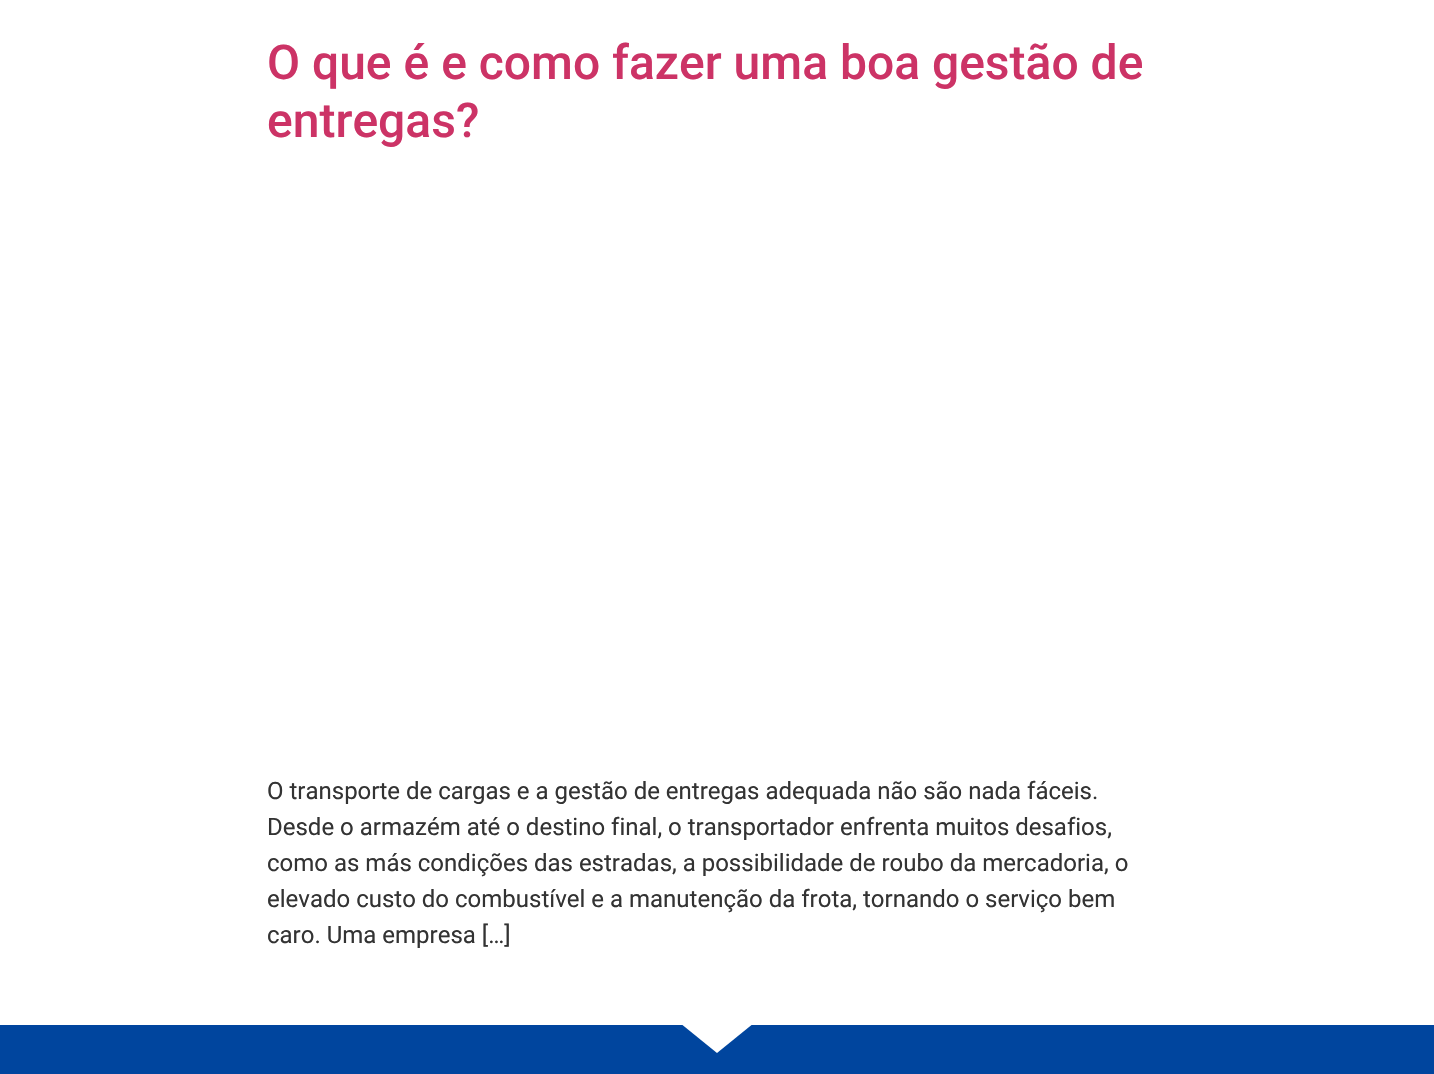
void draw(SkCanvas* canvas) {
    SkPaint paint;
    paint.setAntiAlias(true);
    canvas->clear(0xFFFFFFFF);
    SkFont font1(fontMgr->matchFamilyStyle("Roboto", SkFontStyle(500, SkFontStyle::kNormal_Width, SkFontStyle::kUpright_Slant)), 48);
    font1.setSubpixel(true);
    paint.setColor(0xFFCC3366);
    canvas->drawString("O que é e como fazer uma boa gestão de", 267, 79, font1, paint);
    canvas->drawString("entregas?", 267, 137, font1, paint);
    SkFont font2(fontMgr->matchFamilyStyle("Roboto", SkFontStyle::Normal()), 24);
    font2.setSubpixel(true);
    paint.setColor(0xFF333333);
    canvas->drawString("O transporte de cargas e a gestão de entregas adequada não são nada fáceis.", 267, 799, font2, paint);
    canvas->drawString("Desde o armazém até o destino final, o transportador enfrenta muitos desafios,", 267, 835, font2, paint);
    canvas->drawString("como as más condições das estradas, a possibilidade de roubo da mercadoria, o", 267, 871, font2, paint);
    canvas->drawString("elevado custo do combustível e a manutenção da frota, tornando o serviço bem", 267, 907, font2, paint);
    canvas->drawString("caro. Uma empresa […]", 267, 943, font2, paint);
    paint.setColor(0xFF00459E);
    canvas->drawRect(SkRect::MakeXYWH(0, 1025, 1434, 49), paint);
    paint.setColor(0xFFFFFFFF);
    canvas->drawPath(SkPathBuilder().moveTo(717, 1053).lineTo(680, 1023).lineTo(754, 1023).close().detach(), paint);
}
